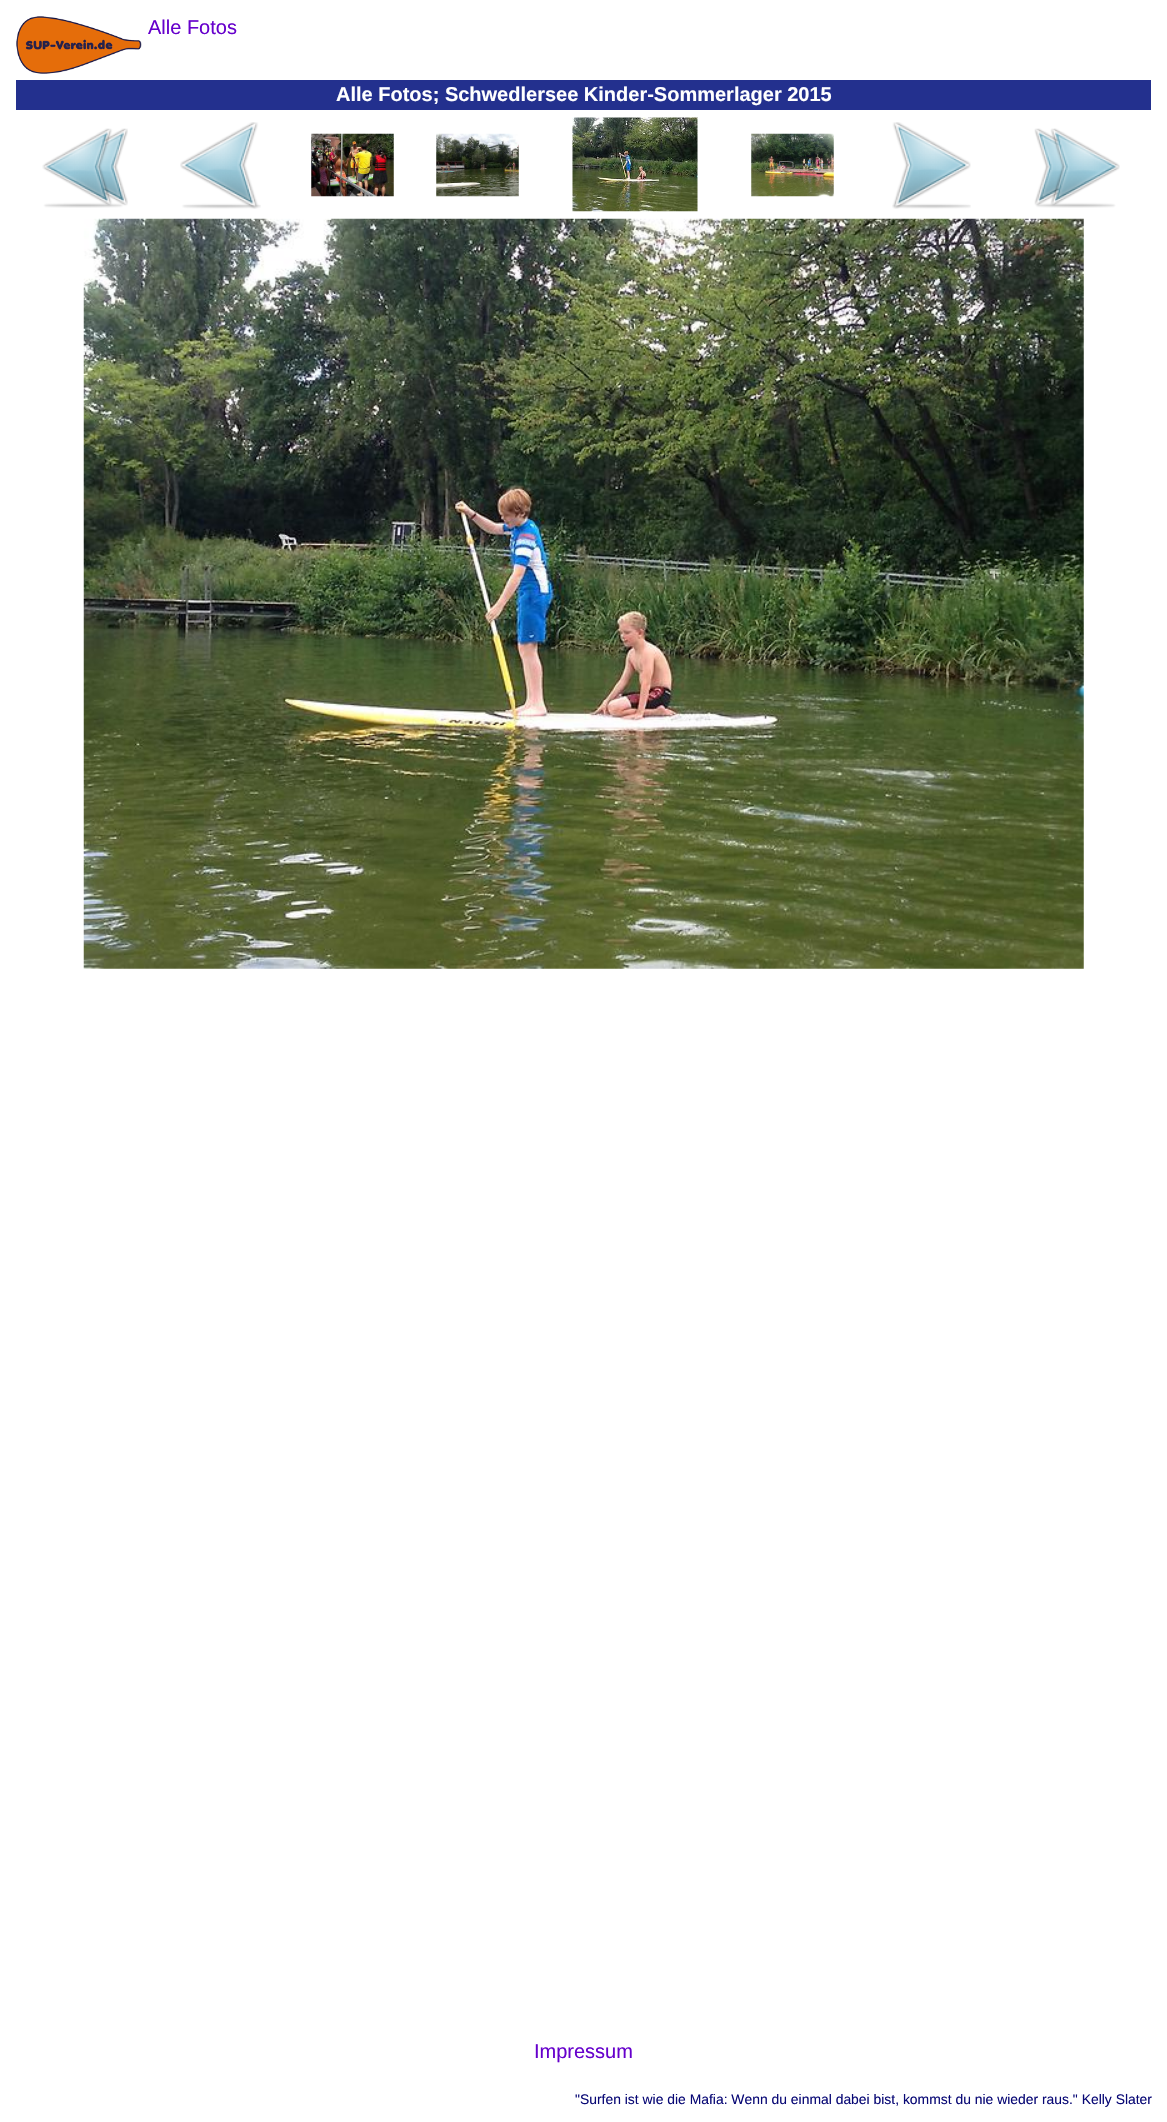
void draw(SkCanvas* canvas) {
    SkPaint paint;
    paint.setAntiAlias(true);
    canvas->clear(0xFFFFFFFF);
    canvas->drawImageRect(SkImages::DeferredFromEncodedData(SkData::MakeFromFileName("img1.png")), SkRect::MakeXYWH(16, 16, 126, 58), SkSamplingOptions());
    SkFont font1(fontMgr->matchFamilyStyle("Liberation Sans", SkFontStyle::Normal()), 20);
    font1.setSubpixel(true);
    paint.setColor(0xFF6600CC);
    canvas->drawString("Alle Fotos", 148, 34, font1, paint);
    paint.setColor(0xFF23308E);
    canvas->drawRect(SkRect::MakeXYWH(16, 80, 1135, 30), paint);
    SkFont font2(fontMgr->matchFamilyStyle("Liberation Sans", SkFontStyle::Bold()), 20);
    font2.setSubpixel(true);
    paint.setColor(0xFFFFFFFF);
    canvas->drawString("Alle Fotos; Schwedlersee Kinder-Sommerlager 2015", 336, 101, font2, paint);
    canvas->drawImageRect(SkImages::DeferredFromEncodedData(SkData::MakeFromFileName("img2.png")), SkRect::MakeXYWH(42, 128, 86, 80), SkSamplingOptions());
    canvas->drawImageRect(SkImages::DeferredFromEncodedData(SkData::MakeFromFileName("img3.png")), SkRect::MakeXYWH(180, 122, 81, 87), SkSamplingOptions());
    canvas->drawImageRect(SkImages::DeferredFromEncodedData(SkData::MakeFromFileName("img4.png")), SkRect::MakeXYWH(311, 133, 83, 64), SkSamplingOptions());
    canvas->drawImageRect(SkImages::DeferredFromEncodedData(SkData::MakeFromFileName("img5.png")), SkRect::MakeXYWH(436, 133, 83, 64), SkSamplingOptions());
    canvas->drawImageRect(SkImages::DeferredFromEncodedData(SkData::MakeFromFileName("img6.png")), SkRect::MakeXYWH(572, 117, 126, 95), SkSamplingOptions());
    canvas->drawImageRect(SkImages::DeferredFromEncodedData(SkData::MakeFromFileName("img7.png")), SkRect::MakeXYWH(751, 133, 83, 64), SkSamplingOptions());
    canvas->drawImageRect(SkImages::DeferredFromEncodedData(SkData::MakeFromFileName("img8.png")), SkRect::MakeXYWH(892, 122, 79, 87), SkSamplingOptions());
    canvas->drawImageRect(SkImages::DeferredFromEncodedData(SkData::MakeFromFileName("img9.png")), SkRect::MakeXYWH(1034, 128, 86, 80), SkSamplingOptions());
    canvas->drawImageRect(SkImages::DeferredFromEncodedData(SkData::MakeFromFileName("img10.png")), SkRect::MakeXYWH(83, 218, 1001, 751), SkSamplingOptions());
    paint.setColor(0xFF6600CC);
    canvas->drawString("Impressum", 534, 2058, font1, paint);
    SkFont font3(fontMgr->matchFamilyStyle("Liberation Sans", SkFontStyle::Normal()), 13.9f);
    font3.setSubpixel(true);
    paint.setColor(0xFF080875);
    canvas->drawString("\"Surfen ist wie die Mafia: Wenn du einmal dabei bist, kommst du nie wieder raus.\" Kelly Slater", 575, 2104, font3, paint);
}
